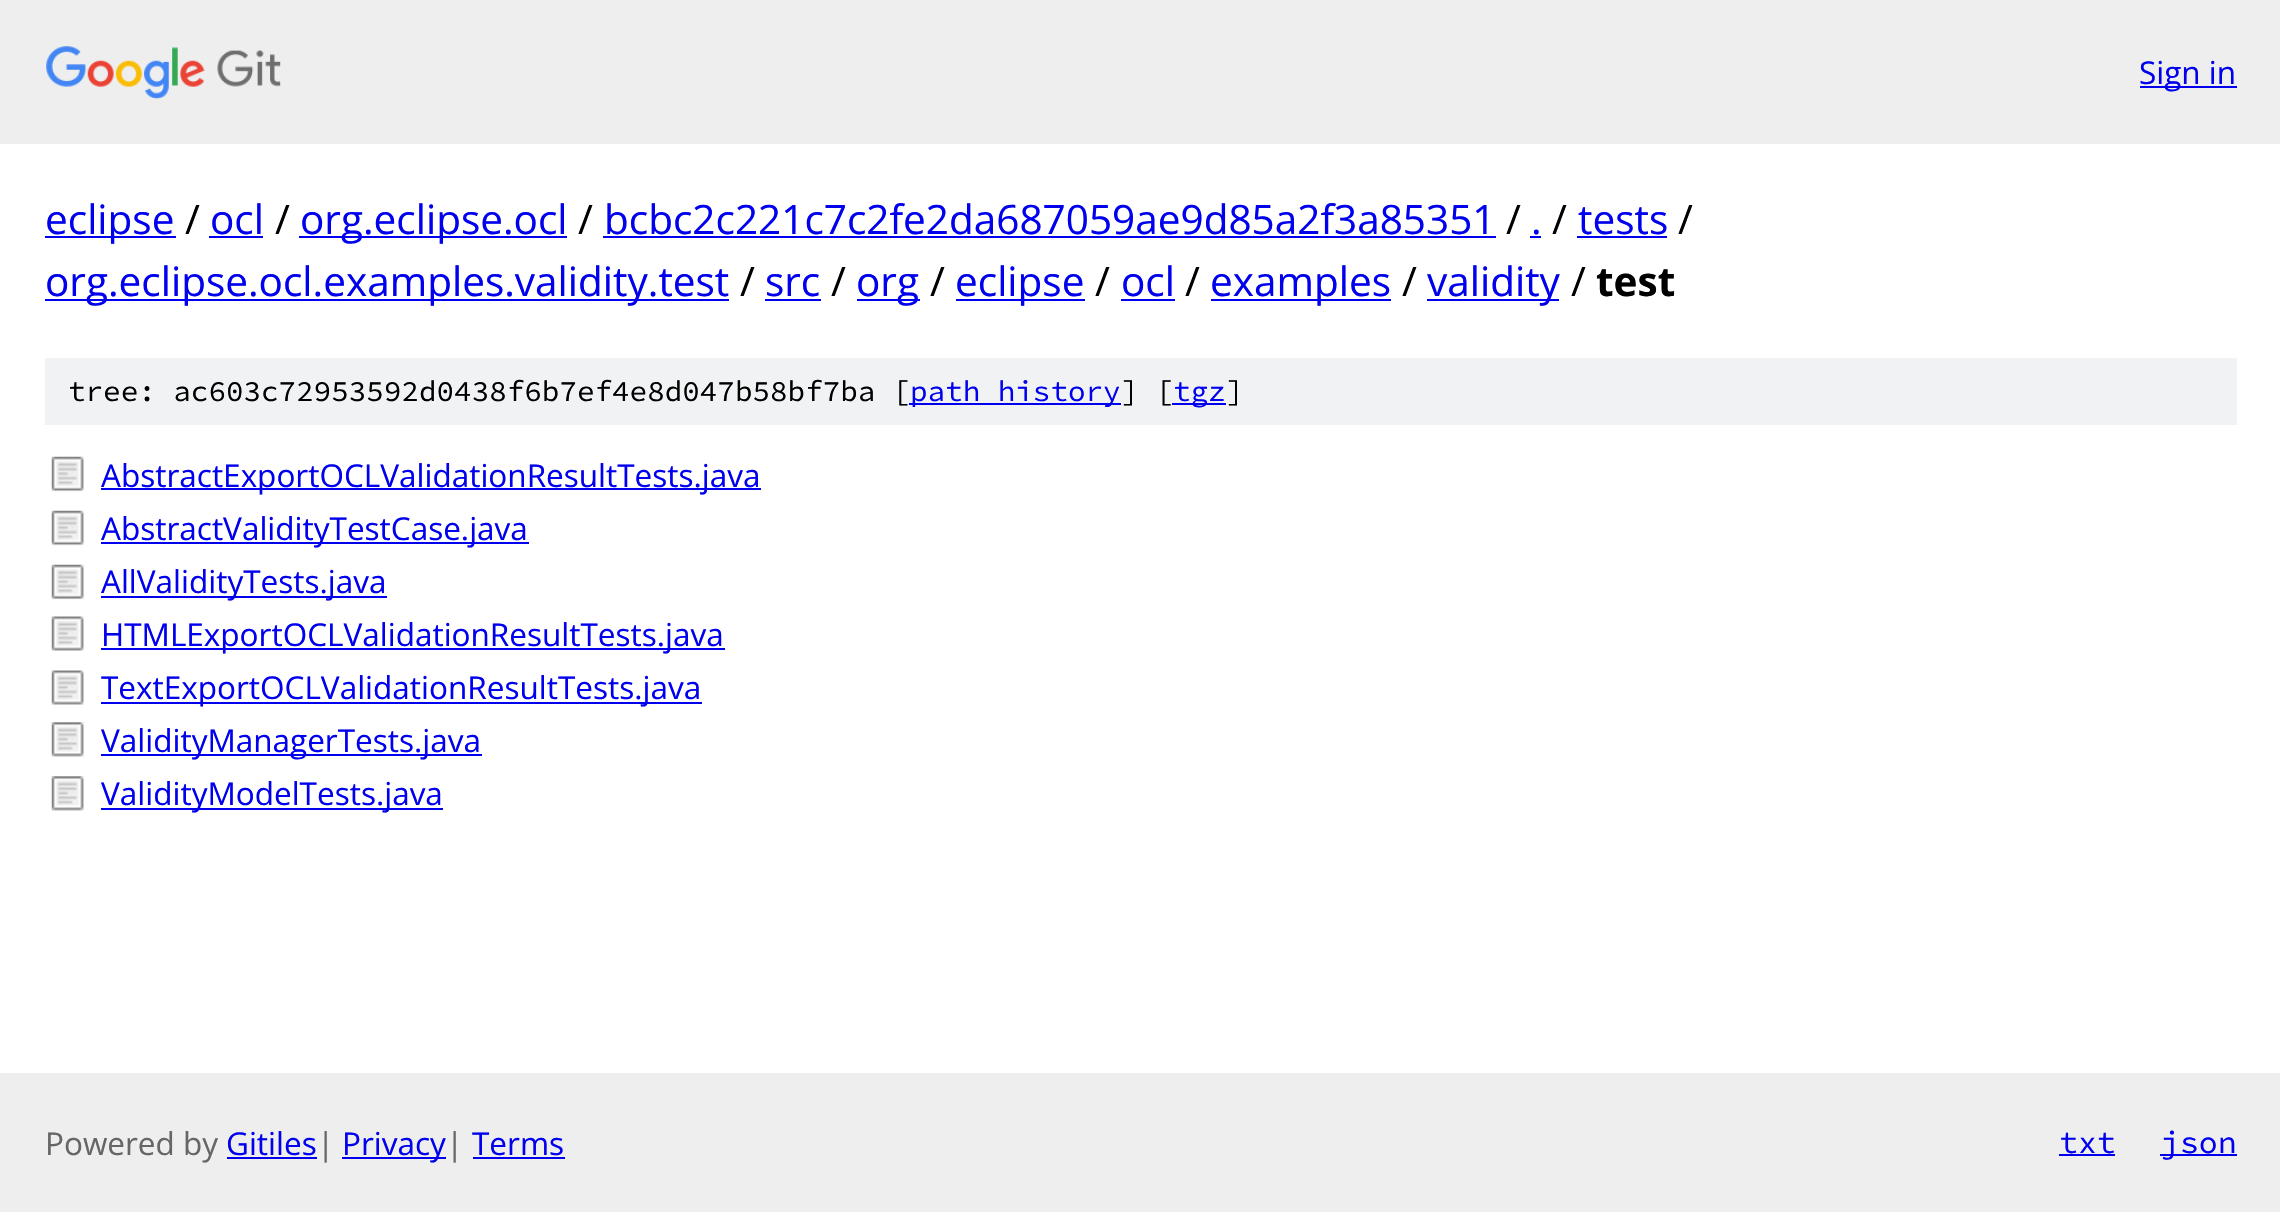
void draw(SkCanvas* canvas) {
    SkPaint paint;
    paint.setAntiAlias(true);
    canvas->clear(0xFFFFFFFF);
    paint.setColor(0xFFEEEEEE);
    canvas->drawRect(SkRect::MakeXYWH(0, 0, 2280, 144), paint);
    canvas->drawImageRect(SkImages::DeferredFromEncodedData(SkData::MakeFromFileName("img1.png")), SkRect::MakeXYWH(46, 46, 235, 53), SkSamplingOptions());
    paint.setColor(0xFF0000EE);
    canvas->drawRect(SkRect::MakeXYWH(2140, 86, 97, 2), paint);
    SkFont font1(fontMgr->matchFamilyStyle("Open Sans", SkFontStyle::Normal()), 31.5f);
    font1.setSubpixel(true);
    canvas->drawString("Sign in", 2139, 84, font1, paint);
    canvas->drawRect(SkRect::MakeXYWH(45, 236, 131, 2), paint);
    SkFont font2(fontMgr->matchFamilyStyle("Open Sans", SkFontStyle::Normal()), 40.5f);
    font2.setSubpixel(true);
    canvas->drawString("eclipse", 45, 234, font2, paint);
    paint.setColor(0xFF000000);
    canvas->drawString("/", 185, 234, font2, paint);
    paint.setColor(0xFF0000EE);
    canvas->drawString("ocl", 210, 234, font2, paint);
    canvas->drawRect(SkRect::MakeXYWH(209, 236, 54, 2), paint);
    paint.setColor(0xFF000000);
    canvas->drawString("/", 275, 234, font2, paint);
    paint.setColor(0xFF0000EE);
    canvas->drawRect(SkRect::MakeXYWH(299, 236, 268, 2), paint);
    canvas->drawString("org.eclipse.ocl", 300, 234, font2, paint);
    paint.setColor(0xFF000000);
    canvas->drawString("/", 578, 234, font2, paint);
    paint.setColor(0xFF0000EE);
    canvas->drawString("bcbc2c221c7c2fe2da687059ae9d85a2f3a85351", 604, 234, font2, paint);
    canvas->drawRect(SkRect::MakeXYWH(603, 236, 893, 2), paint);
    paint.setColor(0xFF000000);
    canvas->drawString("/", 1506, 234, font2, paint);
    paint.setColor(0xFF0000EE);
    canvas->drawString(".", 1531, 234, font2, paint);
    canvas->drawRect(SkRect::MakeXYWH(1530, 236, 11, 2), paint);
    paint.setColor(0xFF000000);
    canvas->drawString("/", 1552, 234, font2, paint);
    paint.setColor(0xFF0000EE);
    canvas->drawString("tests", 1578, 234, font2, paint);
    canvas->drawRect(SkRect::MakeXYWH(1577, 236, 90, 2), paint);
    paint.setColor(0xFF000000);
    canvas->drawString("/", 1678, 234, font2, paint);
    paint.setColor(0xFF0000EE);
    canvas->drawRect(SkRect::MakeXYWH(45, 299, 684, 2), paint);
    canvas->drawString("org.eclipse.ocl.examples.validity.test", 45, 296, font2, paint);
    paint.setColor(0xFF000000);
    canvas->drawString("/", 740, 296, font2, paint);
    paint.setColor(0xFF0000EE);
    canvas->drawString("src", 765, 296, font2, paint);
    canvas->drawRect(SkRect::MakeXYWH(765, 299, 56, 2), paint);
    paint.setColor(0xFF000000);
    canvas->drawString("/", 831, 296, font2, paint);
    paint.setColor(0xFF0000EE);
    canvas->drawRect(SkRect::MakeXYWH(857, 299, 63, 2), paint);
    canvas->drawString("org", 856, 296, font2, paint);
    paint.setColor(0xFF000000);
    canvas->drawString("/", 930, 296, font2, paint);
    paint.setColor(0xFF0000EE);
    canvas->drawRect(SkRect::MakeXYWH(956, 299, 129, 2), paint);
    canvas->drawString("eclipse", 955, 296, font2, paint);
    paint.setColor(0xFF000000);
    canvas->drawString("/", 1095, 296, font2, paint);
    paint.setColor(0xFF0000EE);
    canvas->drawString("ocl", 1121, 296, font2, paint);
    canvas->drawRect(SkRect::MakeXYWH(1121, 299, 54, 2), paint);
    paint.setColor(0xFF000000);
    canvas->drawString("/", 1185, 296, font2, paint);
    paint.setColor(0xFF0000EE);
    canvas->drawRect(SkRect::MakeXYWH(1211, 299, 180, 2), paint);
    canvas->drawString("examples", 1210, 296, font2, paint);
    paint.setColor(0xFF000000);
    canvas->drawString("/", 1402, 296, font2, paint);
    paint.setColor(0xFF0000EE);
    canvas->drawRect(SkRect::MakeXYWH(1427, 299, 132, 2), paint);
    canvas->drawString("validity", 1427, 296, font2, paint);
    paint.setColor(0xFF000000);
    canvas->drawString("/", 1571, 296, font2, paint);
    SkFont font3(fontMgr->matchFamilyStyle("Open Sans", SkFontStyle::Bold()), 40.5f);
    font3.setSubpixel(true);
    canvas->drawString("test", 1596, 296, font3, paint);
    paint.setColor(0xFFF1F2F3);
    canvas->drawRect(SkRect::MakeXYWH(45, 358, 2192, 67), paint);
    SkFont font4(fontMgr->matchFamilyStyle("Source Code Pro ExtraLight", SkFontStyle(200, SkFontStyle::kNormal_Width, SkFontStyle::kUpright_Slant)), 29.25f);
    font4.setSubpixel(true);
    paint.setColor(0xFF000000);
    canvas->drawString("tree: ac603c72953592d0438f6b7ef4e8d047b58bf7ba [", 68, 401, font4, paint);
    paint.setColor(0xFF0000EE);
    canvas->drawRect(SkRect::MakeXYWH(909, 403, 212, 2), paint);
    canvas->drawString("path history", 910, 401, font4, paint);
    paint.setColor(0xFF000000);
    canvas->drawString("] [", 1121, 401, font4, paint);
    paint.setColor(0xFF0000EE);
    canvas->drawRect(SkRect::MakeXYWH(1172, 403, 54, 2), paint);
    canvas->drawString("tgz", 1173, 401, font4, paint);
    paint.setColor(0xFF000000);
    canvas->drawString("]", 1226, 401, font4, paint);
    canvas->drawImageRect(SkImages::DeferredFromEncodedData(SkData::MakeFromFileName("img2.png")), SkRect::MakeXYWH(51, 456, 33, 36), SkSamplingOptions());
    paint.setColor(0xFF0000EE);
    canvas->drawRect(SkRect::MakeXYWH(101, 488, 660, 2), paint);
    canvas->drawString("AbstractExportOCLValidationResultTests.java", 101, 487, font1, paint);
    canvas->drawImageRect(SkImages::DeferredFromEncodedData(SkData::MakeFromFileName("img2.png")), SkRect::MakeXYWH(51, 510, 33, 36), SkSamplingOptions());
    canvas->drawRect(SkRect::MakeXYWH(101, 542, 428, 2), paint);
    canvas->drawString("AbstractValidityTestCase.java", 101, 540, font1, paint);
    canvas->drawImageRect(SkImages::DeferredFromEncodedData(SkData::MakeFromFileName("img3.png")), SkRect::MakeXYWH(51, 564, 33, 36), SkSamplingOptions());
    canvas->drawRect(SkRect::MakeXYWH(101, 596, 286, 2), paint);
    canvas->drawString("AllValidityTests.java", 101, 593, font1, paint);
    canvas->drawImageRect(SkImages::DeferredFromEncodedData(SkData::MakeFromFileName("img4.png")), SkRect::MakeXYWH(51, 616, 33, 35), SkSamplingOptions());
    canvas->drawRect(SkRect::MakeXYWH(101, 648, 624, 2), paint);
    canvas->drawString("HTMLExportOCLValidationResultTests.java", 101, 646, font1, paint);
    canvas->drawImageRect(SkImages::DeferredFromEncodedData(SkData::MakeFromFileName("img4.png")), SkRect::MakeXYWH(51, 670, 33, 35), SkSamplingOptions());
    canvas->drawRect(SkRect::MakeXYWH(101, 702, 601, 2), paint);
    canvas->drawString("TextExportOCLValidationResultTests.java", 101, 699, font1, paint);
    canvas->drawImageRect(SkImages::DeferredFromEncodedData(SkData::MakeFromFileName("img5.png")), SkRect::MakeXYWH(51, 722, 33, 35), SkSamplingOptions());
    canvas->drawRect(SkRect::MakeXYWH(101, 754, 381, 2), paint);
    canvas->drawString("ValidityManagerTests.java", 101, 752, font1, paint);
    canvas->drawImageRect(SkImages::DeferredFromEncodedData(SkData::MakeFromFileName("img6.png")), SkRect::MakeXYWH(51, 776, 33, 35), SkSamplingOptions());
    canvas->drawRect(SkRect::MakeXYWH(101, 808, 342, 2), paint);
    canvas->drawString("ValidityModelTests.java", 101, 805, font1, paint);
    paint.setColor(0xFFEEEEEE);
    canvas->drawRect(SkRect::MakeXYWH(0, 1073, 2280, 139), paint);
    paint.setColor(0xFF666666);
    canvas->drawString("Powered by", 45, 1155, font1, paint);
    paint.setColor(0xFF0000EE);
    canvas->drawString("Gitiles", 226, 1155, font1, paint);
    canvas->drawRect(SkRect::MakeXYWH(227, 1157, 90, 2), paint);
    paint.setColor(0xFF666666);
    canvas->drawString("|", 317, 1155, font1, paint);
    paint.setColor(0xFF0000EE);
    canvas->drawRect(SkRect::MakeXYWH(342, 1157, 104, 2), paint);
    canvas->drawString("Privacy", 342, 1155, font1, paint);
    paint.setColor(0xFF666666);
    canvas->drawString("|", 446, 1155, font1, paint);
    paint.setColor(0xFF0000EE);
    canvas->drawString("Terms", 472, 1155, font1, paint);
    canvas->drawRect(SkRect::MakeXYWH(473, 1157, 92, 2), paint);
    SkFont font5(fontMgr->matchFamilyStyle("Source Code Pro ExtraLight", SkFontStyle(200, SkFontStyle::kNormal_Width, SkFontStyle::kUpright_Slant)), 31.5f);
    font5.setSubpixel(true);
    canvas->drawString("txt", 2059, 1153, font5, paint);
    canvas->drawRect(SkRect::MakeXYWH(2059, 1154, 56, 2), paint);
    canvas->drawRect(SkRect::MakeXYWH(2160, 1154, 77, 2), paint);
    canvas->drawString("json", 2161, 1153, font5, paint);
}
